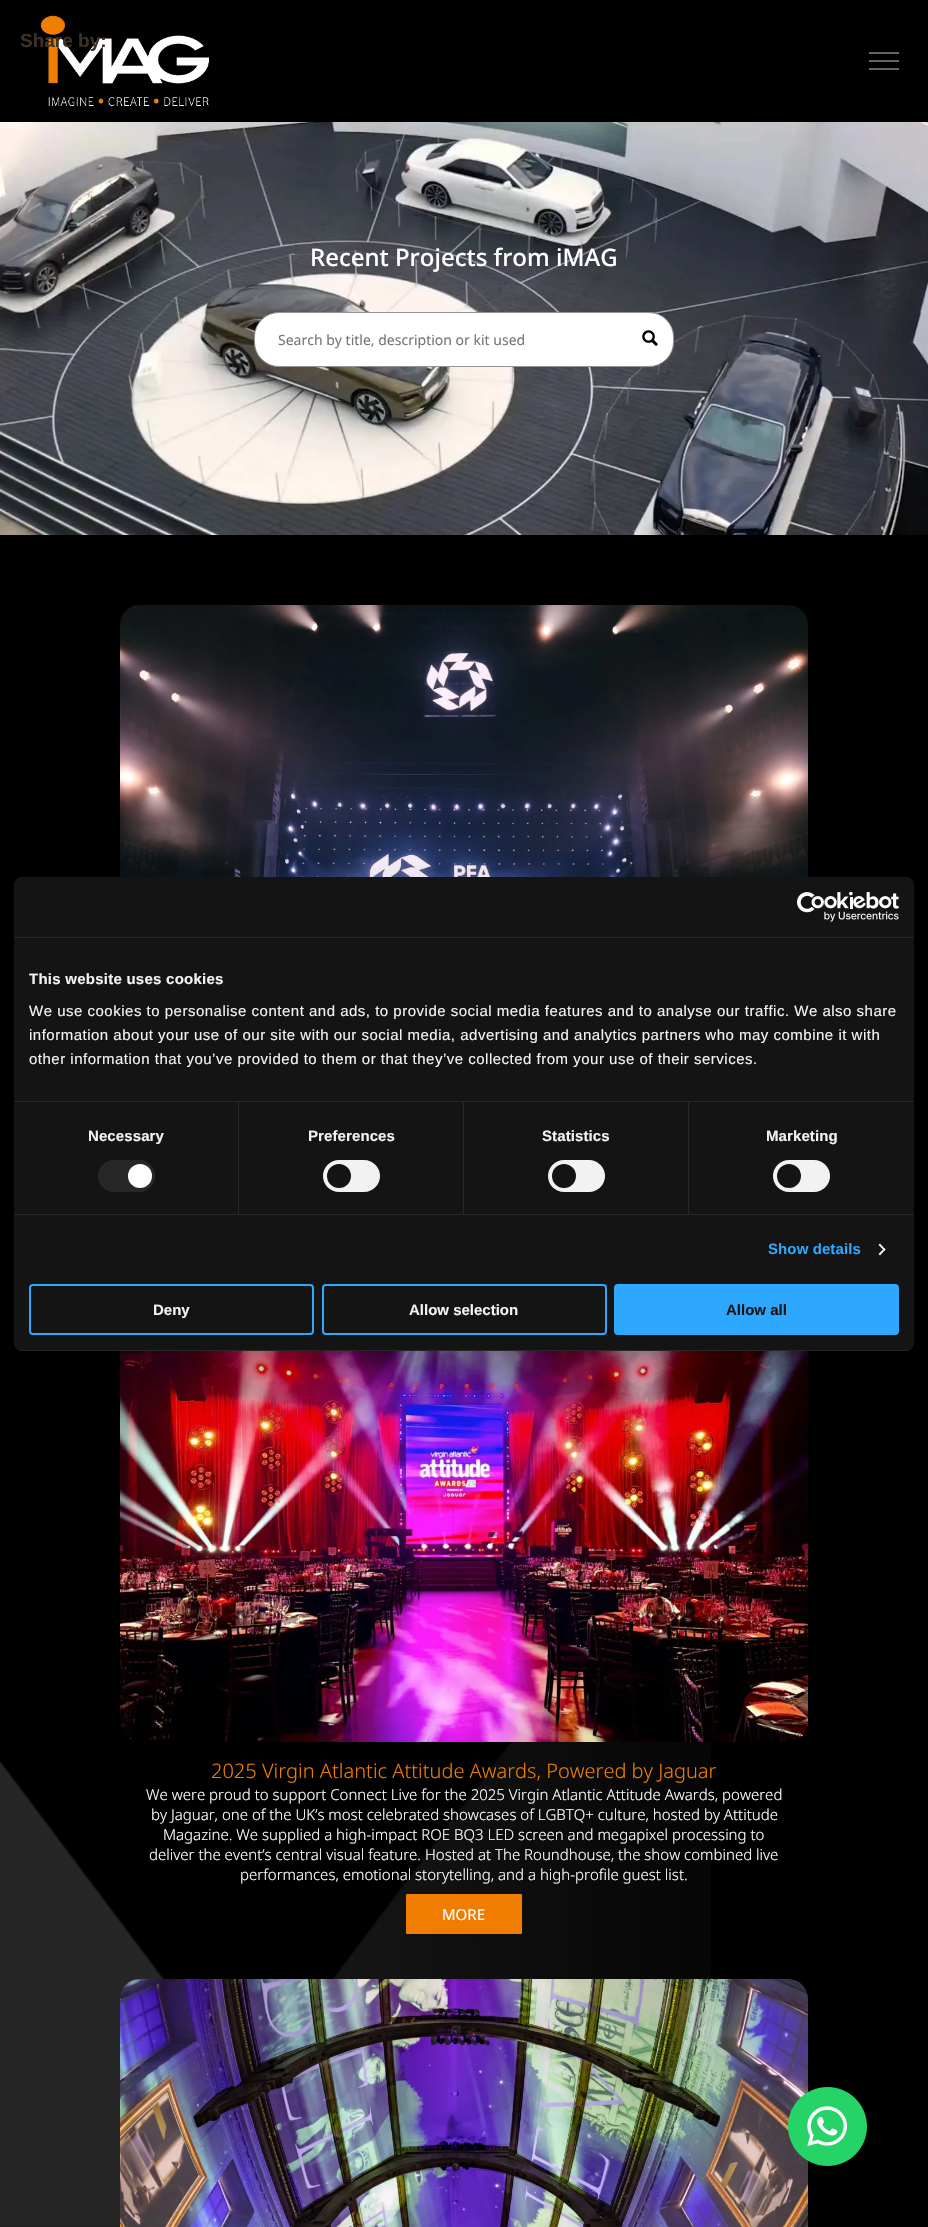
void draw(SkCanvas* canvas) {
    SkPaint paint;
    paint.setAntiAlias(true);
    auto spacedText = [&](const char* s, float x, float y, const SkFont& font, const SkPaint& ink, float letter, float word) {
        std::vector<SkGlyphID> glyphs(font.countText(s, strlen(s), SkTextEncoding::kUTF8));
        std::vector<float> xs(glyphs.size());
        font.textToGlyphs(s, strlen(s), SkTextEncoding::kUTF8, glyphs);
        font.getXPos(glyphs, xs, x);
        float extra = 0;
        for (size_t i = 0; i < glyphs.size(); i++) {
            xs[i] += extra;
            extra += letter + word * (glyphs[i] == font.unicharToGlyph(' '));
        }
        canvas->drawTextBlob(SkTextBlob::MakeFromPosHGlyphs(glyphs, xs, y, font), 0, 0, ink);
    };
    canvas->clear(0xFFFFFFFF);
    paint.setColor(0xFF000000);
    canvas->drawRect(SkRect::MakeXYWH(0, 0, 928, 122), paint);
    canvas->drawImageRect(SkImages::DeferredFromEncodedData(SkData::MakeFromFileName("img1.png")), SkRect::MakeXYWH(40, 15, 169, 92), SkSamplingOptions());
    SkFont font1(fontMgr->matchFamilyStyle("Liberation Sans", SkFontStyle::Bold()), 19);
    font1.setSubpixel(true);
    paint.setColor(0xFF3C3125);
    canvas->drawString("Share by:", 20, 47, font1, paint);
    paint.setColor(0xFF646464);
    canvas->drawRect(SkRect::MakeXYWH(869, 52, 30, 2), paint);
    canvas->drawRect(SkRect::MakeXYWH(869, 60, 30, 2), paint);
    canvas->drawRect(SkRect::MakeXYWH(869, 68, 30, 2), paint);
    canvas->drawImageRect(SkImages::DeferredFromEncodedData(SkData::MakeFromFileName("img2.png")), SkRect::MakeXYWH(0, 122, 928, 413), SkSamplingOptions());
    SkFont font2(fontMgr->matchFamilyStyle("Noto Sans", SkFontStyle(500, SkFontStyle::kNormal_Width, SkFontStyle::kUpright_Slant)), 24);
    font2.setSubpixel(true);
    paint.setColor(0xFFFFFFFF);
    canvas->drawString("Recent Projects from iMAG", 310, 266, font2, paint);
    canvas->drawRoundRect(SkRect::MakeXYWH(254.5f, 312.5f, 419, 54), 24.5f, 24.5f, paint);
    paint.setStyle(SkPaint::kStroke_Style);
    paint.setStrokeWidth(1);
    paint.setColor(0xFF939393);
    canvas->drawRoundRect(SkRect::MakeXYWH(254.5f, 312.5f, 419, 54), 24.5f, 24.5f, paint);
    SkFont font3(fontMgr->matchFamilyStyle("Noto Sans", SkFontStyle::Normal()), 14);
    font3.setSubpixel(true);
    paint.setStyle(SkPaint::kFill_Style);
    paint.setColor(0xFF777777);
    canvas->drawString("Search by title, description or kit used", 278, 345, font3, paint);
    canvas->drawImageRect(SkImages::DeferredFromEncodedData(SkData::MakeFromFileName("img3.png")), SkRect::MakeXYWH(642, 330, 16, 16), SkSamplingOptions());
    paint.setColor(0xFF000000);
    canvas->drawRect(SkRect::MakeXYWH(0, 535, 928, 1692), paint);
    canvas->drawImageRect(SkImages::DeferredFromEncodedData(SkData::MakeFromFileName("img4.png")), SkRect::MakeXYWH(0, 1742, 711, 485), SkSamplingOptions());
    canvas->drawImageRect(SkImages::DeferredFromEncodedData(SkData::MakeFromFileName("img5.png")), SkRect::MakeXYWH(120, 605, 688, 272), SkSamplingOptions());
    canvas->drawImageRect(SkImages::DeferredFromEncodedData(SkData::MakeFromFileName("img6.png")), SkRect::MakeXYWH(120, 1351, 688, 391), SkSamplingOptions());
    SkFont font4(fontMgr->matchFamilyStyle("Noto Sans", SkFontStyle(300, SkFontStyle::kNormal_Width, SkFontStyle::kUpright_Slant)), 20);
    font4.setSubpixel(true);
    paint.setColor(0xFFF07D00);
    canvas->drawString("2025 Virgin Atlantic Attitude Awards, Powered by Jaguar", 211, 1778, font4, paint);
    SkFont font5(fontMgr->matchFamilyStyle("Noto Sans", SkFontStyle(300, SkFontStyle::kNormal_Width, SkFontStyle::kUpright_Slant)), 15);
    font5.setSubpixel(true);
    paint.setColor(0xFFFFFFFF);
    canvas->drawString("We were proud to support Connect Live for the 2025 Virgin Atlantic Attitude Awards, powered", 146, 1800, font5, paint);
    canvas->drawString("by Jaguar, one of the UK’s most celebrated showcases of LGBTQ+ culture, hosted by Attitude", 151, 1820, font5, paint);
    canvas->drawString("Magazine. We supplied a high-impact ROE BQ3 LED screen and megapixel processing to", 163, 1840, font5, paint);
    canvas->drawString("deliver the event’s central visual feature. Hosted at The Roundhouse, the show combined live", 149, 1860, font5, paint);
    canvas->drawString("performances, emotional storytelling, and a high-profile guest list.", 240, 1880, font5, paint);
    paint.setColor(0xFFF07D00);
    canvas->drawRoundRect(SkRect::MakeXYWH(406, 1894, 116, 40), 1, 1, paint);
    SkFont font6(fontMgr->matchFamilyStyle("Noto Sans", SkFontStyle::Normal()), 15);
    font6.setSubpixel(true);
    paint.setColor(0xFFFFFFFF);
    canvas->drawString("MORE", 442, 1920, font6, paint);
    canvas->drawImageRect(SkImages::DeferredFromEncodedData(SkData::MakeFromFileName("img7.png")), SkRect::MakeXYWH(120, 1979, 688, 248), SkSamplingOptions());
    canvas->drawImageRect(SkImages::DeferredFromEncodedData(SkData::MakeFromFileName("img8.png")), SkRect::MakeXYWH(788, 2087, 79, 79), SkSamplingOptions());
    paint.setColor(0x4D000000);
    paint.setMaskFilter(SkMaskFilter::MakeBlur(kNormal_SkBlurStyle, 34));
    canvas->drawRoundRect(SkRect::MakeXYWH(14, 909, 900, 474), 8, 8, paint);
    paint.setMaskFilter(nullptr);
    paint.setColor(0xFF141414);
    canvas->drawRoundRect(SkRect::MakeXYWH(14, 877, 900, 474), 8, 8, paint);
    paint.setColor(0xFF272727);
    canvas->drawRect(SkRect::MakeXYWH(14, 937, 900, 1), paint);
    canvas->drawImageRect(SkImages::DeferredFromEncodedData(SkData::MakeFromFileName("img9.png")), SkRect::MakeXYWH(797, 892, 102, 30), SkSamplingOptions());
    canvas->drawRect(SkRect::MakeXYWH(14, 1101, 900, 1), paint);
    SkFont font7(fontMgr->matchFamilyStyle("Liberation Sans", SkFontStyle::Bold()), 15);
    font7.setSubpixel(true);
    paint.setColor(0xFFF2F2F2);
    spacedText("This website uses cookies", 29, 984, font7, paint, 0.25f, 0);
    SkFont font8(fontMgr->matchFamilyStyle("Liberation Sans", SkFontStyle::Normal()), 15);
    font8.setSubpixel(true);
    spacedText("We use cookies to personalise content and ads, to provide social media features and to analyse our traffic. We also share", 29, 1016, font8, paint, 0.5f, 0);
    spacedText("information about your use of our site with our social media, advertising and analytics partners who may combine it with", 29, 1040, font8, paint, 0.5f, 0);
    spacedText("other information that you’ve provided to them or that they’ve collected from your use of their services.", 29, 1064, font8, paint, 0.5f, 0);
    paint.setColor(0xFF272727);
    canvas->drawRect(SkRect::MakeXYWH(14, 1214, 900, 1), paint);
    canvas->drawRect(SkRect::MakeXYWH(238, 1102, 1, 112), paint);
    paint.setColor(0xFFF2F2F2);
    spacedText("Necessary", 88, 1141, font7, paint, 0.1f, 0);
    paint.setColor(0xFF272727);
    canvas->drawRoundRect(SkRect::MakeXYWH(98, 1160, 57, 32), 16, 16, paint);
    paint.setColor(0xFFFFFFFF);
    canvas->drawCircle(140, 1176, 12, paint);
    paint.setColor(0xFF272727);
    canvas->drawRect(SkRect::MakeXYWH(463, 1102, 1, 112), paint);
    paint.setColor(0xFFF2F2F2);
    spacedText("Preferences", 308, 1141, font7, paint, 0.1f, 0);
    canvas->drawRoundRect(SkRect::MakeXYWH(323, 1160, 57, 32), 16, 16, paint);
    paint.setColor(0xFF141414);
    canvas->drawCircle(339, 1176, 12, paint);
    paint.setColor(0xFF272727);
    canvas->drawRect(SkRect::MakeXYWH(688, 1102, 1, 112), paint);
    paint.setColor(0xFFF2F2F2);
    spacedText("Statistics", 542, 1141, font7, paint, 0.1f, 0);
    canvas->drawRoundRect(SkRect::MakeXYWH(548, 1160, 57, 32), 16, 16, paint);
    paint.setColor(0xFF141414);
    canvas->drawCircle(564, 1176, 12, paint);
    paint.setColor(0xFFF2F2F2);
    spacedText("Marketing", 766, 1141, font7, paint, 0.1f, 0);
    canvas->drawRoundRect(SkRect::MakeXYWH(773, 1160, 57, 32), 16, 16, paint);
    paint.setColor(0xFF141414);
    canvas->drawCircle(789, 1176, 12, paint);
    paint.setColor(0xFF2EA7FF);
    spacedText("Show details", 768, 1254, font7, paint, 0.1f, 0);
    paint.setColor(0xFFF2F2F2);
    canvas->drawPath(SkPathBuilder().moveTo(880, 1243.5f).lineTo(885.5f, 1249.5f).lineTo(884.5f, 1251).lineTo(878.5f, 1245).close().detach(), paint);
    canvas->drawPath(SkPathBuilder().moveTo(884.5f, 1248).lineTo(885.5f, 1249.5f).lineTo(880, 1255.5f).lineTo(878.5f, 1254).close().detach(), paint);
    canvas->save();
    canvas->clipPath(SkPathBuilder().moveTo(22, 877).lineTo(906, 877).cubicTo(910.5f, 877, 914, 880.5f, 914, 885).lineTo(914, 1343).cubicTo(914, 1347.5f, 910.5f, 1351, 906, 1351).lineTo(22, 1351).cubicTo(17.5f, 1351, 14, 1347.5f, 14, 1343).lineTo(14, 885).cubicTo(14, 880.5f, 17.5f, 877, 22, 877).close().detach(), true);
    paint.setColor(0x14FFFFFF);
    canvas->drawRect(SkRect::MakeXYWH(14, 1350, 900, 1), paint);
    canvas->restore();
    paint.setStyle(SkPaint::kStroke_Style);
    paint.setStrokeWidth(2);
    paint.setColor(0xFF2EA7FF);
    canvas->drawRoundRect(SkRect::MakeXYWH(30, 1285, 283, 49), 3, 3, paint);
    paint.setStyle(SkPaint::kFill_Style);
    paint.setColor(0xFFF2F2F2);
    canvas->drawString("Deny", 153, 1315, font7, paint);
    paint.setStyle(SkPaint::kStroke_Style);
    paint.setColor(0xFF2EA7FF);
    canvas->drawRoundRect(SkRect::MakeXYWH(323, 1285, 283, 49), 3, 3, paint);
    paint.setStyle(SkPaint::kFill_Style);
    paint.setColor(0xFFF2F2F2);
    canvas->drawString("Allow selection", 409, 1315, font7, paint);
    paint.setColor(0xFF2EA7FF);
    canvas->drawRoundRect(SkRect::MakeXYWH(615, 1285, 283, 49), 3, 3, paint);
    paint.setStyle(SkPaint::kStroke_Style);
    canvas->drawRoundRect(SkRect::MakeXYWH(615, 1285, 283, 49), 3, 3, paint);
    paint.setStyle(SkPaint::kFill_Style);
    paint.setColor(0xFF141414);
    canvas->drawString("Allow all", 726, 1315, font7, paint);
}
